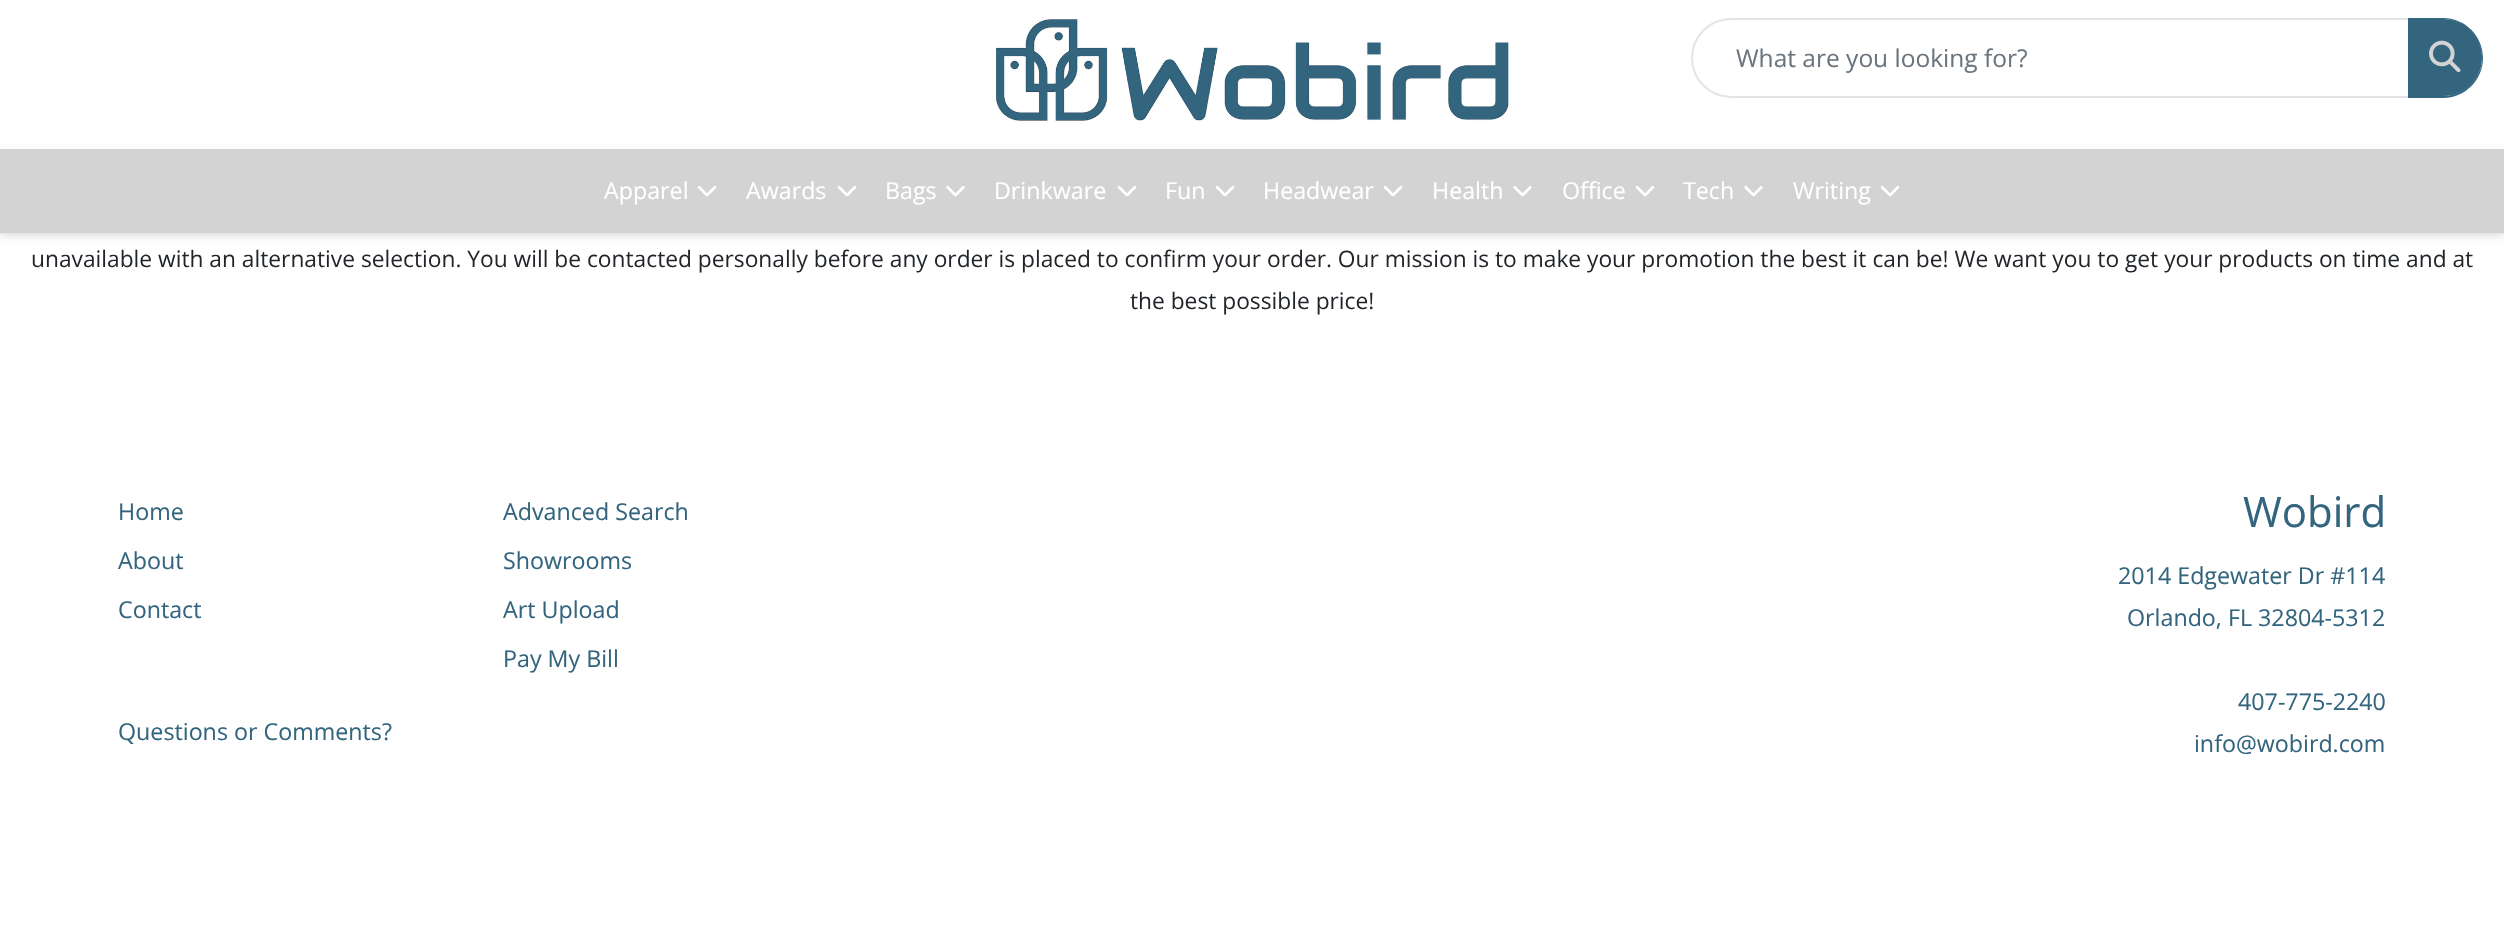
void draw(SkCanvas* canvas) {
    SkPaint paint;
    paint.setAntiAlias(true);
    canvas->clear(0xFFFFFFFF);
    canvas->drawImageRect(SkImages::DeferredFromEncodedData(SkData::MakeFromFileName("img5.png")), SkRect::MakeXYWH(32, 233, 2441, 82), SkSamplingOptions());
    paint.setColor(0x1A000000);
    paint.setMaskFilter(SkMaskFilter::MakeBlur(kNormal_SkBlurStyle, 4.5f));
    canvas->drawRect(SkRect::MakeXYWH(0, 0, 2504, 233), paint);
    paint.setMaskFilter(nullptr);
    paint.setColor(0xFFFFFFFF);
    canvas->drawRect(SkRect::MakeXYWH(0, 0, 2504, 149), paint);
    canvas->drawImageRect(SkImages::DeferredFromEncodedData(SkData::MakeFromFileName("img1.png")), SkRect::MakeXYWH(995, 19, 514, 102), SkSamplingOptions());
    paint.setStyle(SkPaint::kStroke_Style);
    paint.setStrokeWidth(2);
    paint.setColor(0xFFE4E4E4);
    canvas->drawPath(SkPathBuilder().moveTo(1731, 19).lineTo(2409, 19).lineTo(2409, 97).lineTo(1731, 97).cubicTo(1709.5f, 97, 1692, 79.5f, 1692, 58).cubicTo(1692, 36.5f, 1709.5f, 19, 1731, 19).close().detach(), paint);
    SkFont font1(fontMgr->matchFamilyStyle("Open Sans", SkFontStyle::Normal()), 24.5f);
    font1.setSubpixel(true);
    paint.setStyle(SkPaint::kFill_Style);
    paint.setColor(0xFF6C757D);
    canvas->drawString("What are you looking for?", 1736, 67, font1, paint);
    paint.setColor(0xFF34657F);
    canvas->drawPath(SkPathBuilder().moveTo(2408, 19).lineTo(2443.5f, 19).cubicTo(2465, 19, 2482, 36, 2482, 57.5f).cubicTo(2482, 79, 2465, 96, 2443.5f, 96).lineTo(2408, 96).close().detach(), paint);
    canvas->drawPath(SkPathBuilder(SkPathFillType::kEvenOdd).moveTo(2408, 18).lineTo(2443, 18).cubicTo(2465, 18, 2483, 36, 2483, 58).cubicTo(2483, 80, 2465, 98, 2443, 98).lineTo(2408, 98).close().moveTo(2408, 19).lineTo(2443, 19).cubicTo(2464, 19, 2482, 36, 2482, 58).cubicTo(2482, 79, 2464, 96, 2443, 96).lineTo(2408, 96).close().detach(), paint);
    canvas->drawImageRect(SkImages::DeferredFromEncodedData(SkData::MakeFromFileName("img2.png")), SkRect::MakeXYWH(2429, 40, 32, 33), SkSamplingOptions());
    paint.setColor(0x12000000);
    paint.setMaskFilter(SkMaskFilter::MakeBlur(kNormal_SkBlurStyle, 3.5f));
    canvas->drawRect(SkRect::MakeXYWH(0, 152, 2504, 84), paint);
    paint.setMaskFilter(nullptr);
    paint.setColor(0xFFD3D3D3);
    canvas->drawRect(SkRect::MakeXYWH(0, 149, 2504, 84), paint);
    SkFont font2(fontMgr->matchFamilyStyle("Open Sans", SkFontStyle::Normal()), 23.25f);
    font2.setSubpixel(true);
    paint.setColor(0xFFFFFFFF);
    canvas->drawString("Apparel", 604, 199, font2, paint);
    canvas->drawImageRect(SkImages::DeferredFromEncodedData(SkData::MakeFromFileName("img3.png")), SkRect::MakeXYWH(697, 186, 20, 11), SkSamplingOptions());
    canvas->drawString("Awards", 746, 199, font2, paint);
    canvas->drawImageRect(SkImages::DeferredFromEncodedData(SkData::MakeFromFileName("img3.png")), SkRect::MakeXYWH(837, 186, 20, 11), SkSamplingOptions());
    canvas->drawString("Bags", 885, 199, font2, paint);
    canvas->drawImageRect(SkImages::DeferredFromEncodedData(SkData::MakeFromFileName("img4.png")), SkRect::MakeXYWH(946, 186, 19, 11), SkSamplingOptions());
    canvas->drawString("Drinkware", 994, 199, font2, paint);
    canvas->drawImageRect(SkImages::DeferredFromEncodedData(SkData::MakeFromFileName("img3.png")), SkRect::MakeXYWH(1117, 186, 20, 11), SkSamplingOptions());
    canvas->drawString("Fun", 1165, 199, font2, paint);
    canvas->drawImageRect(SkImages::DeferredFromEncodedData(SkData::MakeFromFileName("img3.png")), SkRect::MakeXYWH(1215, 186, 20, 11), SkSamplingOptions());
    canvas->drawString("Headwear", 1263, 199, font2, paint);
    canvas->drawImageRect(SkImages::DeferredFromEncodedData(SkData::MakeFromFileName("img3.png")), SkRect::MakeXYWH(1383, 186, 20, 11), SkSamplingOptions());
    canvas->drawString("Health", 1432, 199, font2, paint);
    canvas->drawImageRect(SkImages::DeferredFromEncodedData(SkData::MakeFromFileName("img4.png")), SkRect::MakeXYWH(1513, 186, 19, 11), SkSamplingOptions());
    canvas->drawString("Office", 1562, 199, font2, paint);
    canvas->drawImageRect(SkImages::DeferredFromEncodedData(SkData::MakeFromFileName("img3.png")), SkRect::MakeXYWH(1635, 186, 20, 11), SkSamplingOptions());
    canvas->drawString("Tech", 1683, 199, font2, paint);
    canvas->drawImageRect(SkImages::DeferredFromEncodedData(SkData::MakeFromFileName("img4.png")), SkRect::MakeXYWH(1744, 186, 19, 11), SkSamplingOptions());
    canvas->drawString("Writing", 1793, 199, font2, paint);
    canvas->drawImageRect(SkImages::DeferredFromEncodedData(SkData::MakeFromFileName("img3.png")), SkRect::MakeXYWH(1880, 186, 20, 11), SkSamplingOptions());
    paint.setColor(0xFF34657F);
    canvas->drawString("Home", 118, 520, font2, paint);
    canvas->drawString("About", 118, 569, font2, paint);
    canvas->drawString("Contact", 118, 618, font2, paint);
    canvas->drawString("Advanced Search", 503, 520, font2, paint);
    canvas->drawString("Showrooms", 503, 569, font2, paint);
    canvas->drawString("Art Upload", 503, 618, font2, paint);
    canvas->drawString("Pay My Bill", 503, 667, font2, paint);
    canvas->drawString("Questions or Comments?", 118, 740, font2, paint);
    SkFont font3(fontMgr->matchFamilyStyle("Open Sans", SkFontStyle::Normal()), 42);
    font3.setSubpixel(true);
    canvas->drawString("Wobird", 2243, 527, font3, paint);
    canvas->drawString("2014 Edgewater Dr #114", 2118, 584, font2, paint);
    canvas->drawString("Orlando, FL 32804-5312", 2127, 626, font2, paint);
    canvas->drawString("407-775-2240", 2238, 710, font2, paint);
    canvas->drawString("info@wobird.com", 2194, 752, font2, paint);
}
